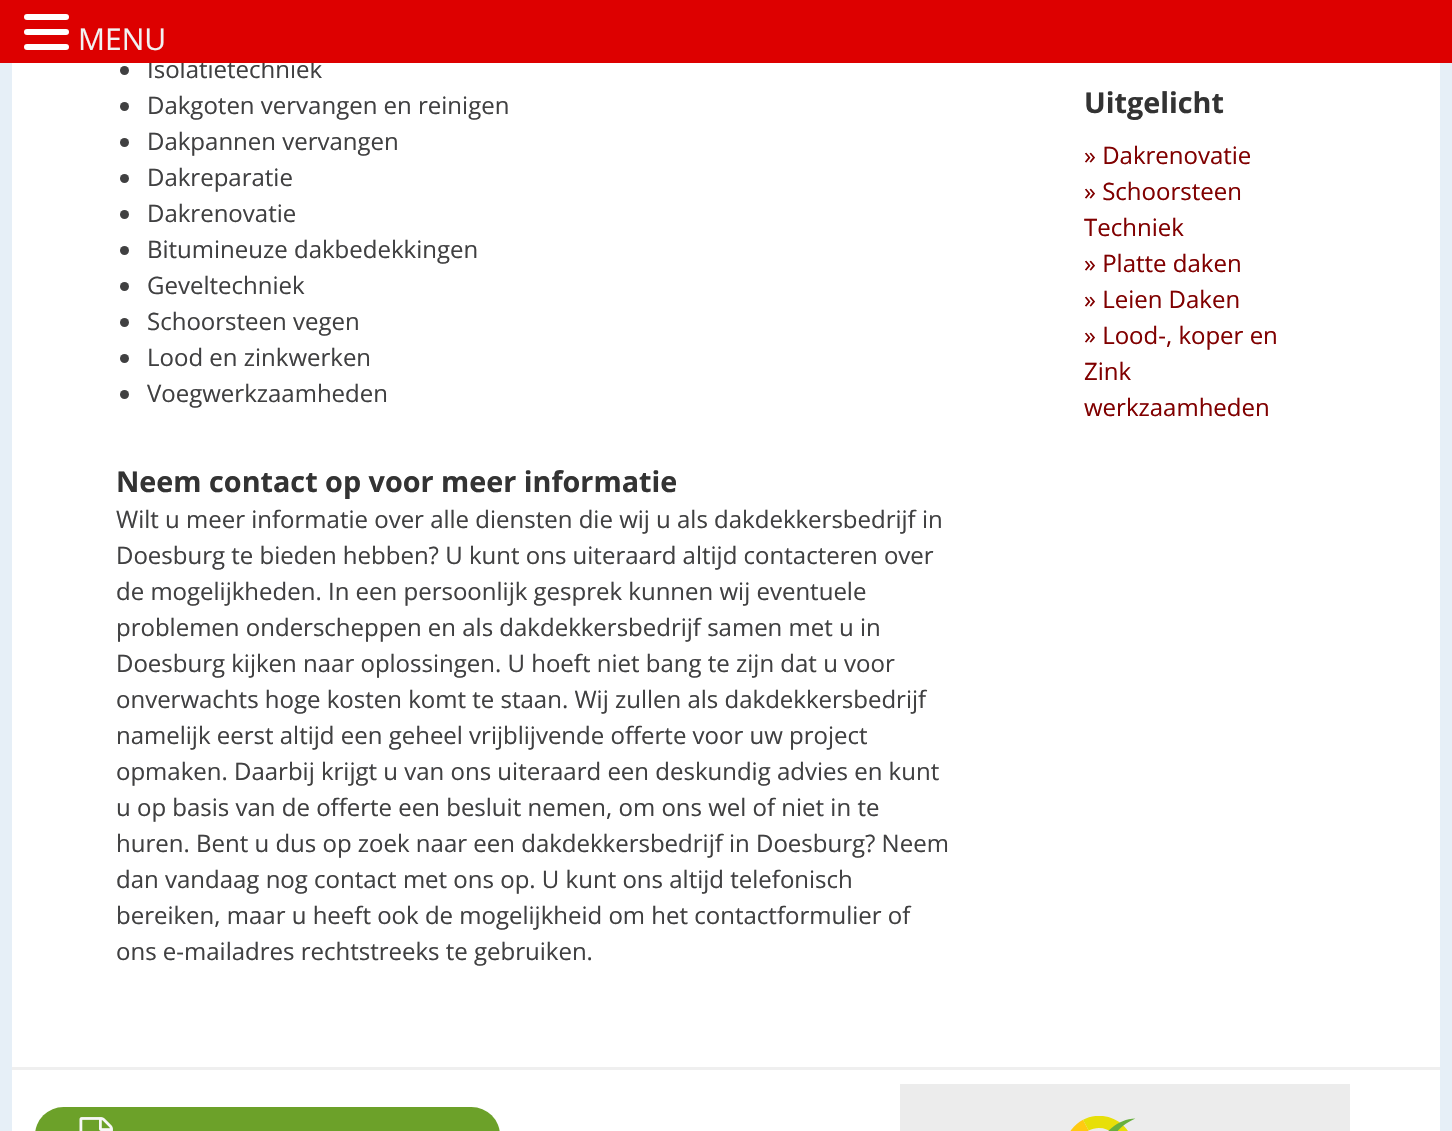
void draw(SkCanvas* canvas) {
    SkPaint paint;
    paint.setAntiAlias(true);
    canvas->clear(0xFFE6EFF7);
    paint.setColor(0xFFFFFFFF);
    canvas->drawRect(SkRect::MakeXYWH(12, 63, 1428, 1004), paint);
    SkFont font1(fontMgr->matchFamilyStyle("Open Sans", SkFontStyle::Normal()), 24);
    font1.setSubpixel(true);
    paint.setColor(0xFF404041);
    canvas->drawString("Isolatietechniek", 147, 78, font1, paint);
    paint.setColor(0xFFDD0000);
    canvas->drawRect(SkRect::MakeXYWH(0, 0, 1452, 63), paint);
    paint.setColor(0xFFFFFFFF);
    canvas->drawRoundRect(SkRect::MakeXYWH(24, 14, 45, 6), 3, 3, paint);
    canvas->drawRoundRect(SkRect::MakeXYWH(24, 29, 45, 6), 3, 3, paint);
    canvas->drawRoundRect(SkRect::MakeXYWH(24, 44, 45, 6), 3, 3, paint);
    SkFont font2(fontMgr->matchFamilyStyle("Open Sans", SkFontStyle::Normal()), 30);
    font2.setSubpixel(true);
    paint.setColor(0xFFF2F2F2);
    canvas->drawString("MENU", 78, 50, font2, paint);
    paint.setColor(0xFF404041);
    canvas->drawCircle(124.5f, 70.5f, 4.5f, paint);
    canvas->drawCircle(124.5f, 106.5f, 4.5f, paint);
    canvas->drawString("Dakgoten vervangen en reinigen", 147, 114, font1, paint);
    canvas->drawCircle(124.5f, 142.5f, 4.5f, paint);
    canvas->drawString("Dakpannen vervangen", 147, 150, font1, paint);
    canvas->drawCircle(124.5f, 178.5f, 4.5f, paint);
    canvas->drawString("Dakreparatie", 147, 186, font1, paint);
    canvas->drawCircle(124.5f, 214.5f, 4.5f, paint);
    canvas->drawString("Dakrenovatie", 147, 222, font1, paint);
    canvas->drawCircle(124.5f, 250.5f, 4.5f, paint);
    canvas->drawString("Bitumineuze dakbedekkingen", 147, 258, font1, paint);
    canvas->drawCircle(124.5f, 286.5f, 4.5f, paint);
    canvas->drawString("Geveltechniek", 147, 294, font1, paint);
    canvas->drawCircle(124.5f, 322.5f, 4.5f, paint);
    canvas->drawString("Schoorsteen vegen", 147, 330, font1, paint);
    canvas->drawCircle(124.5f, 358.5f, 4.5f, paint);
    canvas->drawString("Lood en zinkwerken", 147, 366, font1, paint);
    canvas->drawCircle(124.5f, 394.5f, 4.5f, paint);
    canvas->drawString("Voegwerkzaamheden", 147, 402, font1, paint);
    SkFont font3(fontMgr->matchFamilyStyle("Open Sans", SkFontStyle::Bold()), 28.75f);
    font3.setSubpixel(true);
    paint.setColor(0xFF333333);
    canvas->drawString("Neem contact op voor meer informatie", 116, 492, font3, paint);
    paint.setColor(0xFF404041);
    canvas->drawString("Wilt u meer informatie over alle diensten die wij u als dakdekkersbedrijf in", 116, 528, font1, paint);
    canvas->drawString("Doesburg te bieden hebben? U kunt ons uiteraard altijd contacteren over", 116, 564, font1, paint);
    canvas->drawString("de mogelijkheden. In een persoonlijk gesprek kunnen wij eventuele", 116, 600, font1, paint);
    canvas->drawString("problemen onderscheppen en als dakdekkersbedrijf samen met u in", 116, 636, font1, paint);
    canvas->drawString("Doesburg kijken naar oplossingen. U hoeft niet bang te zijn dat u voor", 116, 672, font1, paint);
    canvas->drawString("onverwachts hoge kosten komt te staan. Wij zullen als dakdekkersbedrijf", 116, 708, font1, paint);
    canvas->drawString("namelijk eerst altijd een geheel vrijblijvende offerte voor uw project", 116, 744, font1, paint);
    canvas->drawString("opmaken. Daarbij krijgt u van ons uiteraard een deskundig advies en kunt", 116, 780, font1, paint);
    canvas->drawString("u op basis van de offerte een besluit nemen, om ons wel of niet in te", 116, 816, font1, paint);
    canvas->drawString("huren. Bent u dus op zoek naar een dakdekkersbedrijf in Doesburg? Neem", 116, 852, font1, paint);
    canvas->drawString("dan vandaag nog contact met ons op. U kunt ons altijd telefonisch", 116, 888, font1, paint);
    canvas->drawString("bereiken, maar u heeft ook de mogelijkheid om het contactformulier of", 116, 924, font1, paint);
    canvas->drawString("ons e-mailadres rechtstreeks te gebruiken.", 116, 960, font1, paint);
    paint.setColor(0xFF333333);
    canvas->drawString("Uitgelicht", 1084, 113, font3, paint);
    paint.setColor(0xFF800000);
    canvas->drawString("» Dakrenovatie", 1084, 164, font1, paint);
    canvas->drawString("» Schoorsteen", 1084, 200, font1, paint);
    canvas->drawString("Techniek", 1084, 236, font1, paint);
    canvas->drawString("» Platte daken", 1084, 272, font1, paint);
    canvas->drawString("» Leien Daken", 1084, 308, font1, paint);
    canvas->drawString("» Lood-, koper en", 1084, 344, font1, paint);
    canvas->drawString("Zink", 1084, 380, font1, paint);
    canvas->drawString("werkzaamheden", 1084, 416, font1, paint);
    paint.setColor(0xFFFFFFFF);
    canvas->drawRect(SkRect::MakeXYWH(12, 1070, 1428, 61), paint);
    paint.setColor(0xFFEFEFEF);
    canvas->drawRect(SkRect::MakeXYWH(12, 1067, 1428, 3), paint);
    paint.setColor(0xFF6CA129);
    canvas->drawRoundRect(SkRect::MakeXYWH(35, 1107, 465, 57), 32.5f, 32.5f, paint);
    canvas->drawImageRect(SkImages::DeferredFromEncodedData(SkData::MakeFromFileName("img1.png")), SkRect::MakeXYWH(79, 1117, 34, 14), SkSamplingOptions());
    canvas->drawImageRect(SkImages::DeferredFromEncodedData(SkData::MakeFromFileName("img2.png")), SkRect::MakeXYWH(900, 1084, 450, 47), SkSamplingOptions());
}
